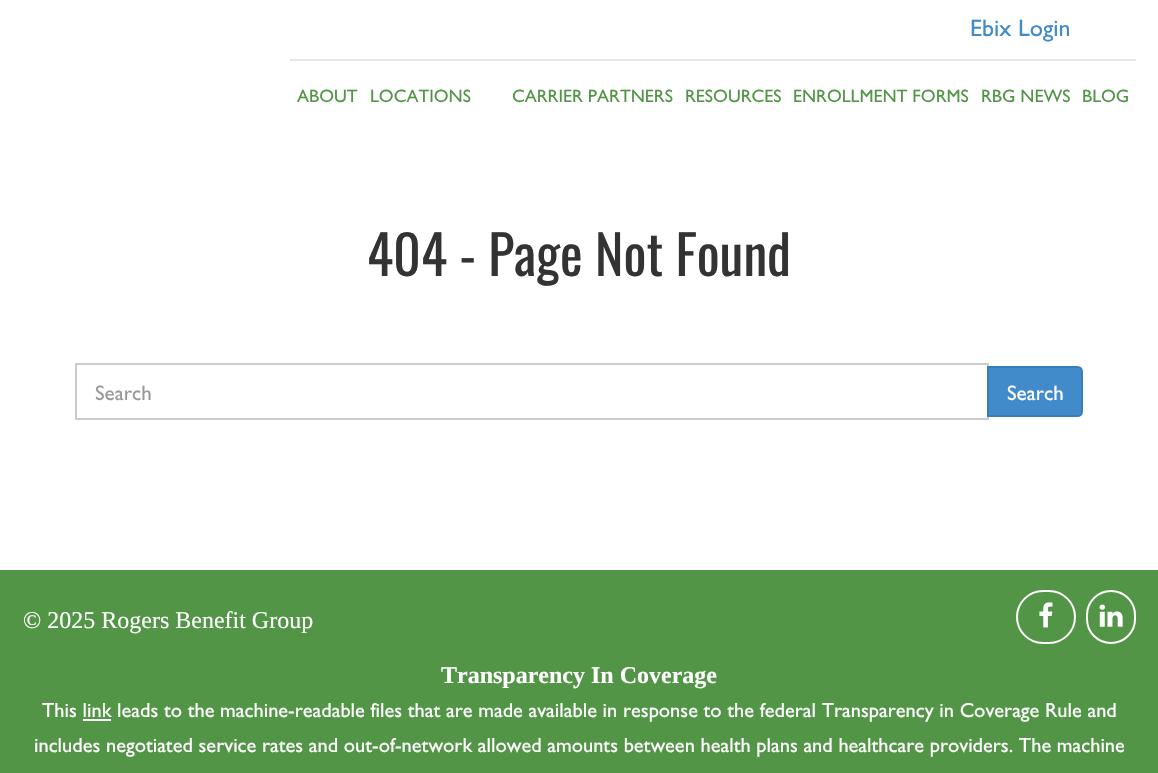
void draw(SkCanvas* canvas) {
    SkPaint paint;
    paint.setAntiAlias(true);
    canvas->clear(0xFFFFFFFF);
    paint.setColor(0xFFE6E6E6);
    canvas->drawRect(SkRect::MakeXYWH(290, 59, 846, 2), paint);
    SkFont font1(fontMgr->matchFamilyStyle("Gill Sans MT", SkFontStyle::Normal()), 24);
    font1.setSubpixel(true);
    paint.setColor(0xFF428BCA);
    canvas->drawString("Ebix Login", 970, 36, font1, paint);
    SkFont font2(fontMgr->matchFamilyStyle("Gill Sans MT", SkFontStyle::Normal()), 18);
    font2.setSubpixel(true);
    paint.setColor(0xFF529546);
    canvas->drawString("ABOUT", 297, 102, font2, paint);
    canvas->drawString("LOCATIONS", 370, 102, font2, paint);
    canvas->drawString("CARRIER PARTNERS", 512, 102, font2, paint);
    canvas->drawString("RESOURCES", 685, 102, font2, paint);
    canvas->drawString("ENROLLMENT FORMS", 793, 102, font2, paint);
    canvas->drawString("RBG NEWS", 981, 102, font2, paint);
    canvas->drawString("BLOG", 1082, 102, font2, paint);
    SkFont font3(fontMgr->matchFamilyStyle("Oswald", SkFontStyle::Normal()), 54);
    font3.setSubpixel(true);
    paint.setColor(0xFF333333);
    canvas->drawString("404 - Page Not Found", 367, 276, font3, paint);
    paint.setStyle(SkPaint::kStroke_Style);
    paint.setStrokeWidth(2);
    paint.setColor(0xFFCCCCCC);
    canvas->drawRect(SkRect::MakeXYWH(76, 364, 912, 55), paint);
    SkFont font4(fontMgr->matchFamilyStyle("Gill Sans MT", SkFontStyle::Normal()), 21);
    font4.setSubpixel(true);
    paint.setStyle(SkPaint::kFill_Style);
    paint.setColor(0xFF999999);
    canvas->drawString("Search", 95, 400, font4, paint);
    paint.setColor(0xFF428BCA);
    canvas->drawPath(SkPathBuilder().moveTo(988, 367).lineTo(1077, 367).cubicTo(1080, 367, 1082, 369, 1082, 372).lineTo(1082, 411).cubicTo(1082, 414, 1080, 416, 1077, 416).lineTo(988, 416).close().detach(), paint);
    paint.setStyle(SkPaint::kStroke_Style);
    paint.setColor(0xFF357EBD);
    canvas->drawPath(SkPathBuilder().moveTo(988, 367).lineTo(1077, 367).cubicTo(1080, 367, 1082, 369, 1082, 372).lineTo(1082, 411).cubicTo(1082, 414, 1080, 416, 1077, 416).lineTo(988, 416).close().detach(), paint);
    paint.setStyle(SkPaint::kFill_Style);
    paint.setColor(0xFFFFFFFF);
    canvas->drawString("Search", 1007, 400, font4, paint);
    paint.setColor(0xFF529546);
    canvas->drawRect(SkRect::MakeXYWH(0, 570, 1158, 203), paint);
    SkFont font5(fontMgr->matchFamilyStyle("Liberation Serif", SkFontStyle::Normal()), 24);
    font5.setSubpixel(true);
    paint.setColor(0xFFFFFFFF);
    canvas->drawString("© 2025 Rogers Benefit Group", 23, 628, font5, paint);
    paint.setStyle(SkPaint::kStroke_Style);
    canvas->drawRoundRect(SkRect::MakeXYWH(1017, 591, 58, 52), 26, 26, paint);
    canvas->drawImageRect(SkImages::DeferredFromEncodedData(SkData::MakeFromFileName("img1.png")), SkRect::MakeXYWH(1039, 602, 14, 26), SkSamplingOptions());
    canvas->drawRoundRect(SkRect::MakeXYWH(1087, 591, 48, 52), 24, 24, paint);
    canvas->drawImageRect(SkImages::DeferredFromEncodedData(SkData::MakeFromFileName("img2.png")), SkRect::MakeXYWH(1099, 604, 24, 23), SkSamplingOptions());
    SkFont font6(fontMgr->matchFamilyStyle("Liberation Serif", SkFontStyle::Bold()), 24);
    font6.setSubpixel(true);
    paint.setStyle(SkPaint::kFill_Style);
    canvas->drawString("Transparency In Coverage", 441, 683, font6, paint);
    SkFont font7(fontMgr->matchFamilyStyle("Gill Sans MT", SkFontStyle::Normal()), 20.4f);
    font7.setSubpixel(true);
    canvas->drawString("This link leads to the machine-readable files that are made available in response to the federal Transparency in Coverage Rule and", 42, 717, font7, paint);
    canvas->drawRect(SkRect::MakeXYWH(83, 719, 28, 2), paint);
    canvas->drawString("includes negotiated service rates and out-of-network allowed amounts between health plans and healthcare providers. The machine", 34, 752, font7, paint);
}
